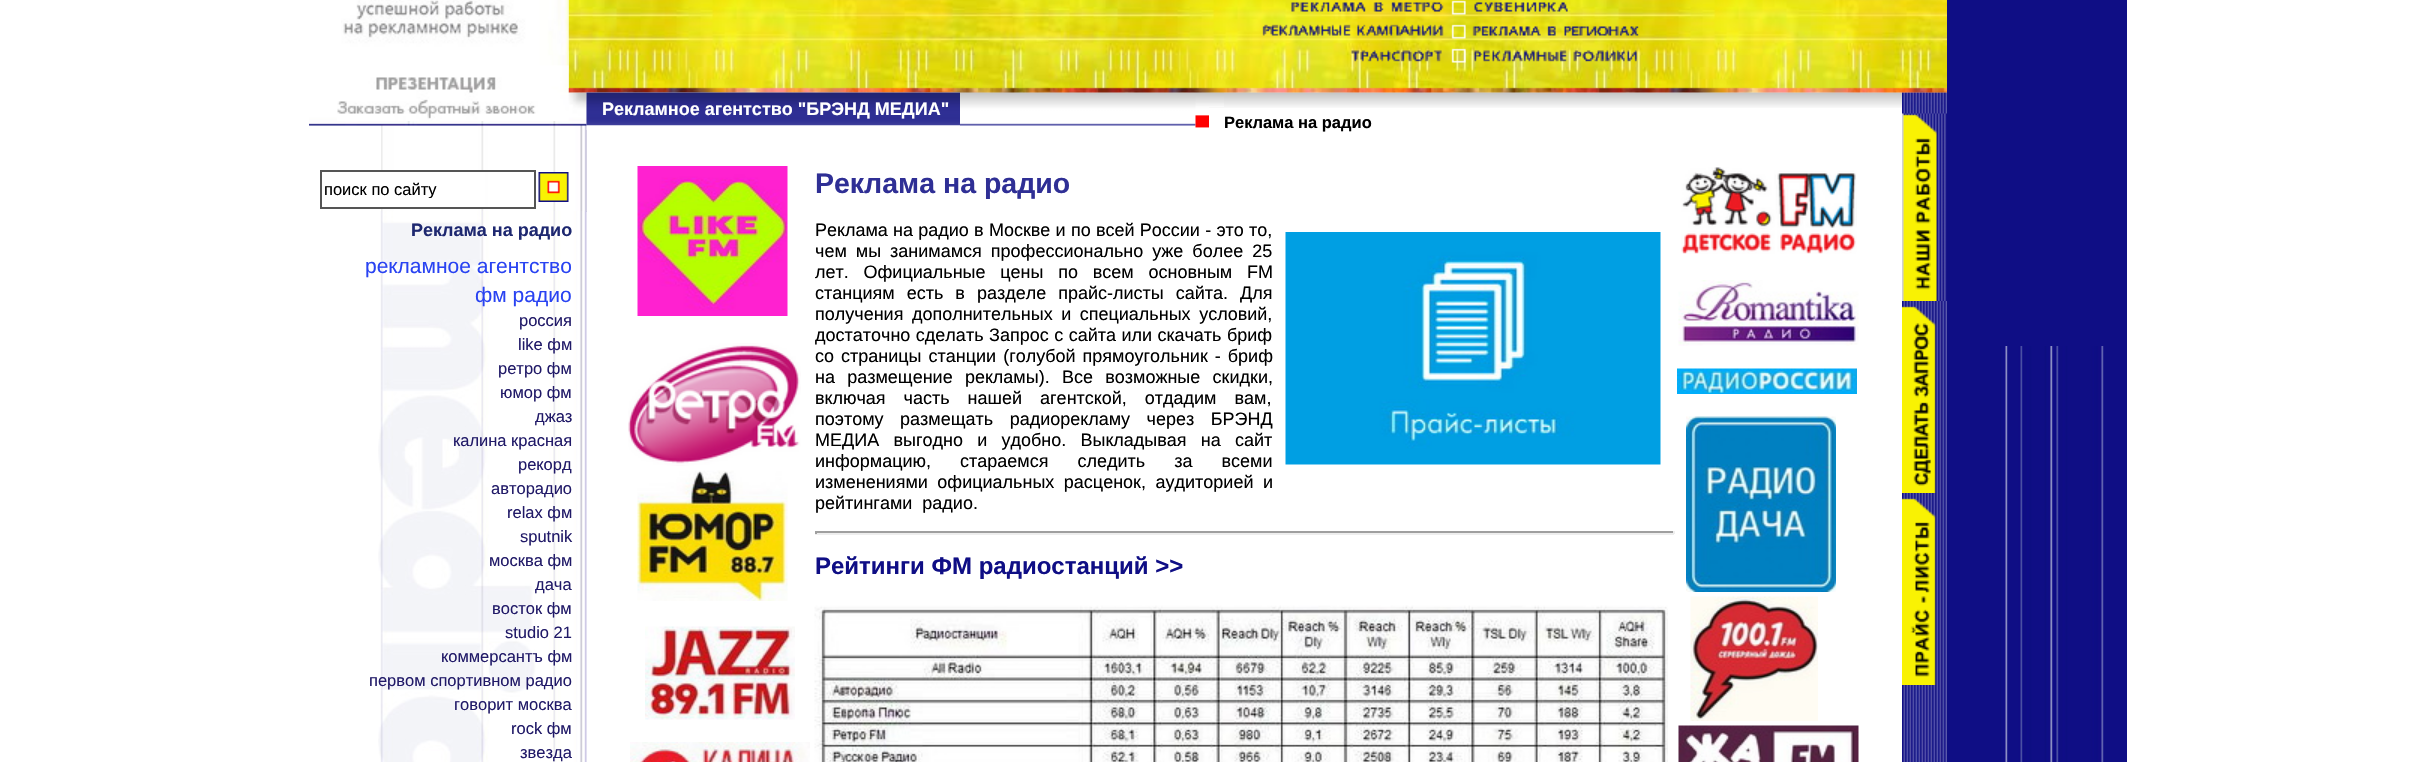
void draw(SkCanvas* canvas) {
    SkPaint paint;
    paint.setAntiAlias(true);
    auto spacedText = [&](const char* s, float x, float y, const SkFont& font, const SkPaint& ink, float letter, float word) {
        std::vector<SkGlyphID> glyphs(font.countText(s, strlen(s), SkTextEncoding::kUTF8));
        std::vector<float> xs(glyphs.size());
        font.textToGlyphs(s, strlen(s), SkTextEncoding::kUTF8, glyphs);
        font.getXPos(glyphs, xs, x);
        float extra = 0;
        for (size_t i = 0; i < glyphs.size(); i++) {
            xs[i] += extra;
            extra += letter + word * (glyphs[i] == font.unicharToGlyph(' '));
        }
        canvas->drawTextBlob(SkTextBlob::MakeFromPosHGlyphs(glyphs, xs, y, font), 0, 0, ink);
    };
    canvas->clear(0xFFFFFFFF);
    canvas->drawImageRect(SkImages::DeferredFromEncodedData(SkData::MakeFromFileName("img5.png")), SkRect::MakeXYWH(381, 92, 206, 119), SkSamplingOptions());
    canvas->drawImageRect(SkImages::DeferredFromEncodedData(SkData::MakeFromFileName("img6.png")), SkRect::MakeXYWH(309, 92, 278, 34), SkSamplingOptions());
    paint.setColor(0xFFD3D3D3);
    canvas->drawRect(SkRect::MakeXYWH(960, 92, 942, 1), paint);
    canvas->drawImageRect(SkImages::DeferredFromEncodedData(SkData::MakeFromFileName("img10.png")), SkRect::MakeXYWH(1195, 93, 707, 15), SkSamplingOptions());
    canvas->drawImageRect(SkImages::DeferredFromEncodedData(SkData::MakeFromFileName("img11.png")), SkRect::MakeXYWH(960, 92, 236, 34), SkSamplingOptions());
    canvas->drawImageRect(SkImages::DeferredFromEncodedData(SkData::MakeFromFileName("img12.png")), SkRect::MakeXYWH(1195, 92, 14, 36), SkSamplingOptions());
    canvas->drawImageRect(SkImages::DeferredFromEncodedData(SkData::MakeFromFileName("img13.png")), SkRect::MakeXYWH(1209, 92, 15, 15), SkSamplingOptions());
    canvas->drawImageRect(SkImages::DeferredFromEncodedData(SkData::MakeFromFileName("img27.png")), SkRect::MakeXYWH(1902, 92, 45, 670), SkSamplingOptions());
    canvas->drawImageRect(SkImages::DeferredFromEncodedData(SkData::MakeFromFileName("img28.png")), SkRect::MakeXYWH(1902, 92, 45, 22), SkSamplingOptions());
    canvas->drawImageRect(SkImages::DeferredFromEncodedData(SkData::MakeFromFileName("img3.png")), SkRect::MakeXYWH(568, 0, 1379, 93), SkSamplingOptions());
    canvas->drawImageRect(SkImages::DeferredFromEncodedData(SkData::MakeFromFileName("img1.png")), SkRect::MakeXYWH(341, 0, 228, 88), SkSamplingOptions());
    canvas->drawImageRect(SkImages::DeferredFromEncodedData(SkData::MakeFromFileName("img2.png")), SkRect::MakeXYWH(337, 65, 232, 56), SkSamplingOptions());
    canvas->drawImageRect(SkImages::DeferredFromEncodedData(SkData::MakeFromFileName("img4.png")), SkRect::MakeXYWH(1262, 0, 377, 63), SkSamplingOptions());
    paint.setColor(0xFFD3D0E2);
    canvas->drawRect(SkRect::MakeXYWH(586, 130, 1, 82), paint);
    paint.setColor(0xFFFFFFFF);
    canvas->drawRect(SkRect::MakeXYWH(381, 172, 103, 35), paint);
    paint.setStyle(SkPaint::kStroke_Style);
    paint.setStrokeWidth(2);
    paint.setColor(0xFF555555);
    canvas->drawRect(SkRect::MakeXYWH(321, 171, 214, 37), paint);
    canvas->save();
    canvas->clipRect(SkRect::MakeXYWH(324, 180, 207, 18));
    SkFont font1(fontMgr->matchFamilyStyle("Liberation Sans", SkFontStyle::Normal()), 16.5f);
    font1.setSubpixel(true);
    paint.setStyle(SkPaint::kFill_Style);
    paint.setColor(0xFF000000);
    canvas->drawString("поиск по сайту", 324, 195, font1, paint);
    canvas->restore();
    canvas->drawImageRect(SkImages::DeferredFromEncodedData(SkData::MakeFromFileName("img7.png")), SkRect::MakeXYWH(538, 172, 31, 30), SkSamplingOptions());
    canvas->drawImageRect(SkImages::DeferredFromEncodedData(SkData::MakeFromFileName("img8.png")), SkRect::MakeXYWH(378, 211, 209, 551), SkSamplingOptions());
    SkFont font2(fontMgr->matchFamilyStyle("Liberation Sans", SkFontStyle::Bold()), 18);
    font2.setSubpixel(true);
    paint.setColor(0xFF1E2870);
    canvas->drawString("Реклама на радио", 411, 236, font2, paint);
    SkFont font3(fontMgr->matchFamilyStyle("Liberation Sans", SkFontStyle::Normal()), 21);
    font3.setSubpixel(true);
    paint.setColor(0xFF2943F2);
    canvas->drawString("рекламное агентство", 365, 273, font3, paint);
    canvas->drawString("фм радио", 475, 302, font3, paint);
    paint.setColor(0xFF211A68);
    canvas->drawString("россия", 519, 326, font1, paint);
    canvas->drawString("like фм", 518, 350, font1, paint);
    canvas->drawString("ретро фм", 498, 374, font1, paint);
    canvas->drawString("юмор фм", 500, 398, font1, paint);
    canvas->drawString("джаз", 535, 422, font1, paint);
    canvas->drawString("калина красная", 453, 446, font1, paint);
    canvas->drawString("рекорд", 518, 470, font1, paint);
    canvas->drawString("авторадио", 491, 494, font1, paint);
    canvas->drawString("relax фм", 507, 518, font1, paint);
    canvas->drawString("sputnik", 520, 542, font1, paint);
    canvas->drawString("москва фм", 489, 566, font1, paint);
    canvas->drawString("дача", 535, 590, font1, paint);
    canvas->drawString("восток фм", 492, 614, font1, paint);
    canvas->drawString("studio 21", 505, 638, font1, paint);
    canvas->drawString("коммерсантъ фм", 441, 662, font1, paint);
    canvas->drawString("первом спортивном радио", 369, 686, font1, paint);
    canvas->drawString("говорит москва", 454, 710, font1, paint);
    canvas->drawString("rock фм", 511, 734, font1, paint);
    canvas->drawString("звезда", 520, 758, font1, paint);
    canvas->drawImageRect(SkImages::DeferredFromEncodedData(SkData::MakeFromFileName("img9.png")), SkRect::MakeXYWH(586, 92, 374, 34), SkSamplingOptions());
    paint.setColor(0xFFFFFFFF);
    canvas->drawString("Рекламное агентство \"БРЭНД МЕДИА\"", 602, 115, font2, paint);
    SkFont font4(fontMgr->matchFamilyStyle("Liberation Sans", SkFontStyle::Bold()), 16.5f);
    font4.setSubpixel(true);
    paint.setColor(0xFF000000);
    canvas->drawString("Реклама на радио", 1224, 128, font4, paint);
    canvas->drawImageRect(SkImages::DeferredFromEncodedData(SkData::MakeFromFileName("img14.png")), SkRect::MakeXYWH(637, 166, 151, 150), SkSamplingOptions());
    canvas->drawImageRect(SkImages::DeferredFromEncodedData(SkData::MakeFromFileName("img15.png")), SkRect::MakeXYWH(628, 343, 173, 123), SkSamplingOptions());
    canvas->drawImageRect(SkImages::DeferredFromEncodedData(SkData::MakeFromFileName("img16.png")), SkRect::MakeXYWH(637, 470, 151, 131), SkSamplingOptions());
    canvas->drawImageRect(SkImages::DeferredFromEncodedData(SkData::MakeFromFileName("img17.png")), SkRect::MakeXYWH(645, 626, 150, 94), SkSamplingOptions());
    canvas->drawImageRect(SkImages::DeferredFromEncodedData(SkData::MakeFromFileName("img18.png")), SkRect::MakeXYWH(630, 742, 180, 20), SkSamplingOptions());
    SkFont font5(fontMgr->matchFamilyStyle("Liberation Sans", SkFontStyle::Bold()), 28.5f);
    font5.setSubpixel(true);
    paint.setColor(0xFF2F2F95);
    canvas->drawString("Реклама на радио", 815, 193, font5, paint);
    SkFont font6(fontMgr->matchFamilyStyle("Liberation Sans", SkFontStyle::Normal()), 18);
    font6.setSubpixel(true);
    paint.setColor(0xFF000000);
    spacedText("Реклама на радио в Москве и по всей России - это то,", 815, 236, font6, paint, 0, 0.25f);
    canvas->drawImageRect(SkImages::DeferredFromEncodedData(SkData::MakeFromFileName("img19.png")), SkRect::MakeXYWH(1285, 232, 376, 233), SkSamplingOptions());
    spacedText("чем мы занимамся профессионально уже более 25", 815, 257, font6, paint, 0, 4);
    spacedText("лет. Официальные цены по всем основным FM", 815, 278, font6, paint, 0, 9.75f);
    spacedText("станциям есть в разделе прайс-листы сайта. Для", 815, 299, font6, paint, 0, 7);
    spacedText("получения дополнительных и специальных условий,", 815, 320, font6, paint, 0, 3.5f);
    spacedText("достаточно сделать Запрос с сайта или скачать бриф", 815, 341, font6, paint, 0, 0.5f);
    spacedText("со страницы станции (голубой прямоугольник - бриф", 815, 362, font6, paint, 0, 2);
    spacedText("на размещение рекламы). Все возможные скидки,", 815, 383, font6, paint, 0, 7.25f);
    spacedText("включая часть нашей агентской, отдадим вам,", 815, 404, font6, paint, 0, 13);
    spacedText("поэтому размещать радиорекламу через БРЭНД", 815, 425, font6, paint, 0, 11.5f);
    spacedText("МЕДИА выгодно и удобно. Выкладывая на сайт", 815, 446, font6, paint, 0, 9.25f);
    spacedText("информацию, стараемся следить за всеми", 815, 467, font6, paint, 0, 24);
    spacedText("изменениями официальных расценок, аудиторией и", 815, 488, font6, paint, 0, 4.5f);
    canvas->drawString("рейтингами  радио.", 815, 509, font6, paint);
    paint.setColor(0xFF9F9F9F);
    canvas->drawRect(SkRect::MakeXYWH(815, 531, 859, 2), paint);
    paint.setColor(0xFFEEEEEE);
    canvas->drawRect(SkRect::MakeXYWH(1673, 531, 2, 3), paint);
    canvas->drawRect(SkRect::MakeXYWH(815, 533, 859, 2), paint);
    paint.setColor(0xFF9F9F9F);
    canvas->drawRect(SkRect::MakeXYWH(815, 531, 2, 3), paint);
    SkFont font7(fontMgr->matchFamilyStyle("Liberation Sans", SkFontStyle::Bold()), 24);
    font7.setSubpixel(true);
    paint.setColor(0xFF0F0E85);
    canvas->drawString("Рейтинги ФМ радиостанций >>", 815, 574, font7, paint);
    canvas->drawImageRect(SkImages::DeferredFromEncodedData(SkData::MakeFromFileName("img20.png")), SkRect::MakeXYWH(814, 605, 854, 157), SkSamplingOptions());
    canvas->drawImageRect(SkImages::DeferredFromEncodedData(SkData::MakeFromFileName("img21.png")), SkRect::MakeXYWH(1681, 167, 176, 87), SkSamplingOptions());
    canvas->drawImageRect(SkImages::DeferredFromEncodedData(SkData::MakeFromFileName("img22.png")), SkRect::MakeXYWH(1678, 280, 181, 66), SkSamplingOptions());
    canvas->drawImageRect(SkImages::DeferredFromEncodedData(SkData::MakeFromFileName("img23.png")), SkRect::MakeXYWH(1677, 368, 180, 26), SkSamplingOptions());
    canvas->drawImageRect(SkImages::DeferredFromEncodedData(SkData::MakeFromFileName("img24.png")), SkRect::MakeXYWH(1686, 416, 150, 176), SkSamplingOptions());
    canvas->drawImageRect(SkImages::DeferredFromEncodedData(SkData::MakeFromFileName("img25.png")), SkRect::MakeXYWH(1690, 596, 128, 125), SkSamplingOptions());
    canvas->drawImageRect(SkImages::DeferredFromEncodedData(SkData::MakeFromFileName("img26.png")), SkRect::MakeXYWH(1678, 725, 181, 37), SkSamplingOptions());
    canvas->drawImageRect(SkImages::DeferredFromEncodedData(SkData::MakeFromFileName("img29.png")), SkRect::MakeXYWH(1902, 113, 45, 188), SkSamplingOptions());
    canvas->drawImageRect(SkImages::DeferredFromEncodedData(SkData::MakeFromFileName("img30.png")), SkRect::MakeXYWH(1902, 306, 34, 187), SkSamplingOptions());
    canvas->drawImageRect(SkImages::DeferredFromEncodedData(SkData::MakeFromFileName("img31.png")), SkRect::MakeXYWH(1902, 498, 34, 187), SkSamplingOptions());
    canvas->drawRect(SkRect::MakeXYWH(1947, 0, 180, 762), paint);
    canvas->drawImageRect(SkImages::DeferredFromEncodedData(SkData::MakeFromFileName("img32.png")), SkRect::MakeXYWH(2000, 346, 104, 416), SkSamplingOptions());
}
